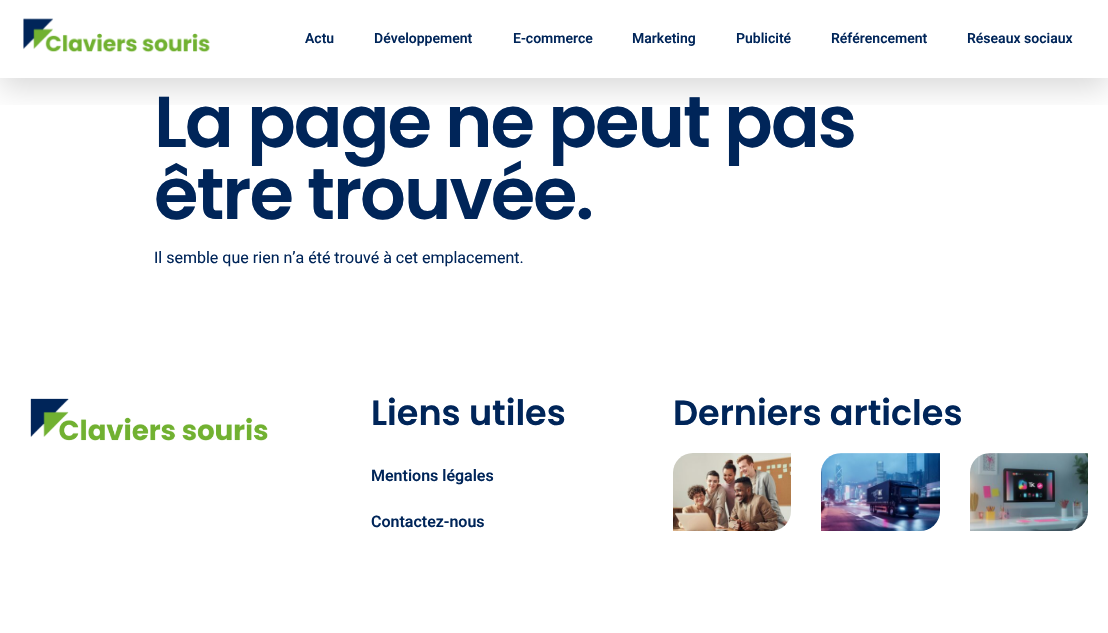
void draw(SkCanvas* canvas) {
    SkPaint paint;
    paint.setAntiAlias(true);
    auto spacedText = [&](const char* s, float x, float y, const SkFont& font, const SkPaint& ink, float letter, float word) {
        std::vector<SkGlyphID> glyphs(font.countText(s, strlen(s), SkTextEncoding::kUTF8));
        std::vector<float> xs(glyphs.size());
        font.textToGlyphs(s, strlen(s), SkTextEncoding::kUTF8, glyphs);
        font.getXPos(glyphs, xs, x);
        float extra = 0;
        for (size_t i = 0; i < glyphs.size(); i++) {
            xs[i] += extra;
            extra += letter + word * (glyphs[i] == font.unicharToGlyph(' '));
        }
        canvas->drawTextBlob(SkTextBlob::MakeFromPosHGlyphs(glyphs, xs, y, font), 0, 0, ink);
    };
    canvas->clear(0xFFFFFFFF);
    canvas->save();
    canvas->clipRect(SkRect::MakeXYWH(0, 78, 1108, 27));
    paint.setColor(0x26000000);
    paint.setMaskFilter(SkMaskFilter::MakeBlur(kNormal_SkBlurStyle, 15));
    canvas->drawRect(SkRect::MakeXYWH(0, 10, 1108, 78), paint);
    paint.setMaskFilter(nullptr);
    canvas->restore();
    canvas->drawImageRect(SkImages::DeferredFromEncodedData(SkData::MakeFromFileName("img1.png")), SkRect::MakeXYWH(23, 18, 187, 35), SkSamplingOptions());
    SkFont font1(fontMgr->matchFamilyStyle("Heebo", SkFontStyle(600, SkFontStyle::kNormal_Width, SkFontStyle::kUpright_Slant)), 14);
    font1.setSubpixel(true);
    paint.setColor(0xFF002559);
    canvas->drawString("Actu", 305, 43, font1, paint);
    canvas->drawString("Développement", 374, 43, font1, paint);
    canvas->drawString("E-commerce", 513, 43, font1, paint);
    canvas->drawString("Marketing", 632, 43, font1, paint);
    canvas->drawString("Publicité", 736, 43, font1, paint);
    canvas->drawString("Référencement", 831, 43, font1, paint);
    canvas->drawString("Réseaux sociaux", 967, 43, font1, paint);
    SkFont font2(fontMgr->matchFamilyStyle("Poppins", SkFontStyle(600, SkFontStyle::kNormal_Width, SkFontStyle::kUpright_Slant)), 72);
    font2.setSubpixel(true);
    spacedText("La page ne peut pas", 154, 147, font2, paint, -2, 0);
    spacedText("être trouvée.", 154, 219, font2, paint, -2, 0);
    SkFont font3(fontMgr->matchFamilyStyle("Heebo", SkFontStyle::Normal()), 16);
    font3.setSubpixel(true);
    canvas->drawString("Il semble que rien n’a été trouvé à cet emplacement.", 154, 263, font3, paint);
    canvas->drawImageRect(SkImages::DeferredFromEncodedData(SkData::MakeFromFileName("img2.png")), SkRect::MakeXYWH(30, 398, 238, 43), SkSamplingOptions());
    SkFont font4(fontMgr->matchFamilyStyle("Poppins", SkFontStyle(600, SkFontStyle::kNormal_Width, SkFontStyle::kUpright_Slant)), 35);
    font4.setSubpixel(true);
    canvas->drawString("Liens utiles", 371, 425, font4, paint);
    SkFont font5(fontMgr->matchFamilyStyle("Heebo", SkFontStyle(600, SkFontStyle::kNormal_Width, SkFontStyle::kUpright_Slant)), 16);
    font5.setSubpixel(true);
    canvas->drawString("Mentions légales", 371, 481, font5, paint);
    canvas->drawString("Contactez-nous", 371, 527, font5, paint);
    canvas->drawString("Derniers articles", 673, 425, font4, paint);
    canvas->drawImageRect(SkImages::DeferredFromEncodedData(SkData::MakeFromFileName("img3.png")), SkRect::MakeXYWH(673, 453, 118, 78), SkSamplingOptions());
    canvas->drawImageRect(SkImages::DeferredFromEncodedData(SkData::MakeFromFileName("img4.png")), SkRect::MakeXYWH(821, 453, 119, 78), SkSamplingOptions());
    canvas->drawImageRect(SkImages::DeferredFromEncodedData(SkData::MakeFromFileName("img5.png")), SkRect::MakeXYWH(970, 453, 118, 78), SkSamplingOptions());
}
